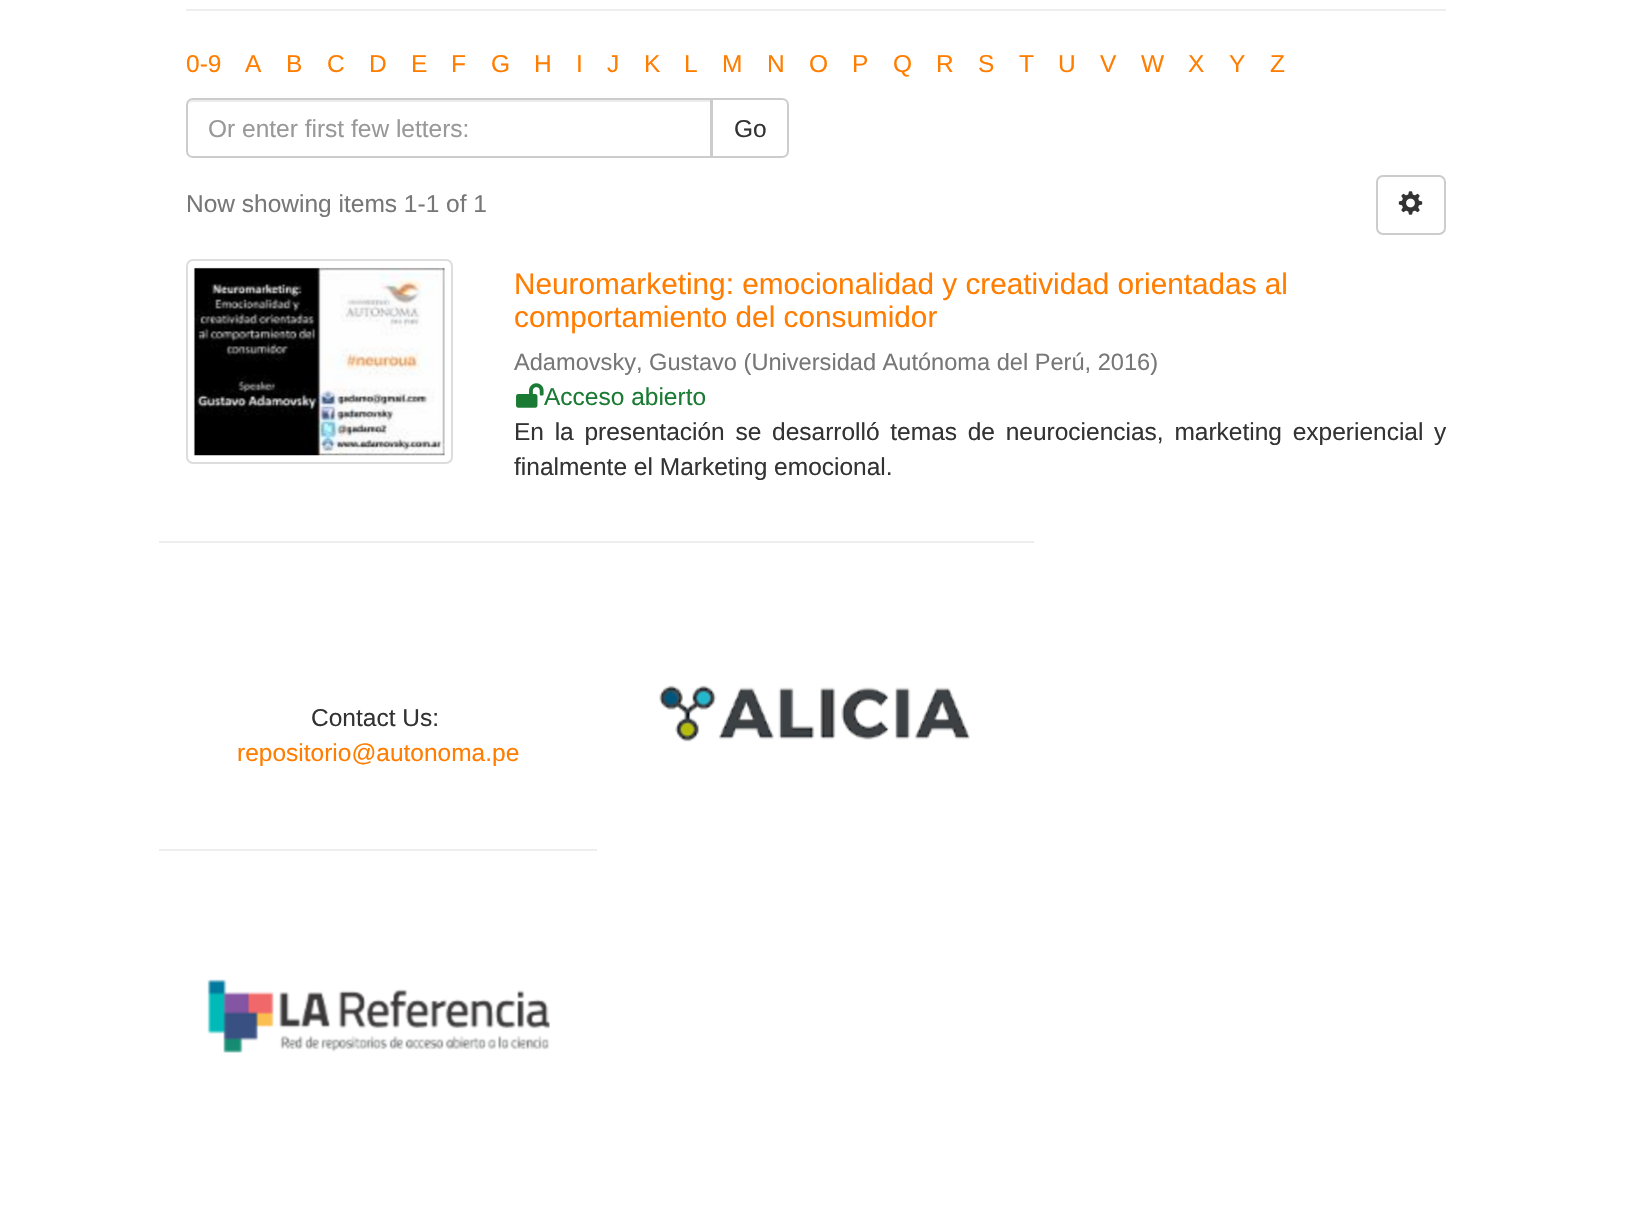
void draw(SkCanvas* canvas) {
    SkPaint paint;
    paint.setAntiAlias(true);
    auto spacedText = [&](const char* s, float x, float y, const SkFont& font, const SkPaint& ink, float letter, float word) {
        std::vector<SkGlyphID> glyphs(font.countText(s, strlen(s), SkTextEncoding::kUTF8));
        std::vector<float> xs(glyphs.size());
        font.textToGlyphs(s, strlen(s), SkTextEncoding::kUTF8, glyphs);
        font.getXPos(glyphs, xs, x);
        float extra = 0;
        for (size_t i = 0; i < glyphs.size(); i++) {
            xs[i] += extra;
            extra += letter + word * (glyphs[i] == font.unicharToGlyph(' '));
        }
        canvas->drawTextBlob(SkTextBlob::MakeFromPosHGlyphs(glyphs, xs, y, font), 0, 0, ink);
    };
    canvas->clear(0xFFFFFFFF);
    paint.setColor(0xFFEEEEEE);
    canvas->drawRect(SkRect::MakeXYWH(186, 9, 1260, 2), paint);
    SkFont font1(fontMgr->matchFamilyStyle("Liberation Sans", SkFontStyle::Normal()), 24.5f);
    font1.setSubpixel(true);
    paint.setColor(0xFFFF7D00);
    canvas->drawString("0-9", 186, 72, font1, paint);
    canvas->drawString("A", 245, 72, font1, paint);
    canvas->drawString("B", 286, 72, font1, paint);
    canvas->drawString("C", 327, 72, font1, paint);
    canvas->drawString("D", 369, 72, font1, paint);
    canvas->drawString("E", 411, 72, font1, paint);
    canvas->drawString("F", 451, 72, font1, paint);
    canvas->drawString("G", 491, 72, font1, paint);
    canvas->drawString("H", 534, 72, font1, paint);
    canvas->drawString("I", 576, 72, font1, paint);
    canvas->drawString("J", 607, 72, font1, paint);
    canvas->drawString("K", 644, 72, font1, paint);
    canvas->drawString("L", 684, 72, font1, paint);
    canvas->drawString("M", 722, 72, font1, paint);
    canvas->drawString("N", 767, 72, font1, paint);
    canvas->drawString("O", 809, 72, font1, paint);
    canvas->drawString("P", 852, 72, font1, paint);
    canvas->drawString("Q", 893, 72, font1, paint);
    canvas->drawString("R", 936, 72, font1, paint);
    canvas->drawString("S", 978, 72, font1, paint);
    canvas->drawString("T", 1019, 72, font1, paint);
    canvas->drawString("U", 1058, 72, font1, paint);
    canvas->drawString("V", 1100, 72, font1, paint);
    canvas->drawString("W", 1141, 72, font1, paint);
    canvas->drawString("X", 1188, 72, font1, paint);
    canvas->drawString("Y", 1229, 72, font1, paint);
    canvas->drawString("Z", 1270, 72, font1, paint);
    paint.setStyle(SkPaint::kStroke_Style);
    paint.setStrokeWidth(2);
    paint.setColor(0xFFCCCCCC);
    canvas->drawPath(SkPathBuilder().moveTo(712, 99).lineTo(782, 99).cubicTo(785.5f, 99, 788, 101.5f, 788, 105).lineTo(788, 151).cubicTo(788, 154.5f, 785.5f, 157, 782, 157).lineTo(712, 157).close().detach(), paint);
    paint.setStyle(SkPaint::kFill_Style);
    paint.setColor(0xFFFFFFFF);
    canvas->drawPath(SkPathBuilder().moveTo(193, 98).lineTo(712, 98).lineTo(712, 158).lineTo(193, 158).cubicTo(189, 158, 186, 155, 186, 151).lineTo(186, 105).cubicTo(186, 101, 189, 98, 193, 98).close().detach(), paint);
    paint.setColor(0xFFECECEC);
    canvas->drawPath(SkPathBuilder().moveTo(192, 102).lineTo(710, 102).lineTo(710, 156).lineTo(711, 156).lineTo(711, 100).lineTo(192, 100).cubicTo(188, 100, 187, 104, 187, 107).cubicTo(187, 104, 190, 102, 192, 102).close().detach(), paint);
    paint.setStyle(SkPaint::kStroke_Style);
    paint.setColor(0xFFCCCCCC);
    canvas->drawPath(SkPathBuilder().moveTo(193, 99).lineTo(711, 99).lineTo(711, 157).lineTo(193, 157).cubicTo(189.5f, 157, 187, 154.5f, 187, 151).lineTo(187, 105).cubicTo(187, 101.5f, 189.5f, 99, 193, 99).close().detach(), paint);
    paint.setStyle(SkPaint::kFill_Style);
    paint.setColor(0xFF999999);
    canvas->drawString("Or enter first few letters:", 208, 137, font1, paint);
    paint.setColor(0xFF333333);
    canvas->drawString("Go", 734, 137, font1, paint);
    paint.setColor(0xFF777777);
    canvas->drawString("Now showing items 1-1 of 1", 186, 212, font1, paint);
    paint.setStyle(SkPaint::kStroke_Style);
    paint.setColor(0xFFCCCCCC);
    canvas->drawRoundRect(SkRect::MakeXYWH(1377, 176, 68, 58), 6, 6, paint);
    canvas->drawImageRect(SkImages::DeferredFromEncodedData(SkData::MakeFromFileName("img1.png")), SkRect::MakeXYWH(1398, 191, 25, 24), SkSamplingOptions());
    paint.setColor(0xFFDDDDDD);
    canvas->drawRoundRect(SkRect::MakeXYWH(187, 260, 265, 203), 6, 6, paint);
    canvas->drawImageRect(SkImages::DeferredFromEncodedData(SkData::MakeFromFileName("img2.png")), SkRect::MakeXYWH(193, 267, 252, 189), SkSamplingOptions());
    SkFont font2(fontMgr->matchFamilyStyle("Liberation Sans", SkFontStyle::Normal()), 29.75f);
    font2.setSubpixel(true);
    paint.setStyle(SkPaint::kFill_Style);
    paint.setColor(0xFFFF7D00);
    canvas->drawString("Neuromarketing: emocionalidad y creatividad orientadas al", 514, 294, font2, paint);
    canvas->drawString("comportamiento del consumidor", 514, 327, font2, paint);
    SkFont font3(fontMgr->matchFamilyStyle("Liberation Sans", SkFontStyle::Normal()), 23.6f);
    font3.setSubpixel(true);
    paint.setColor(0xFF777777);
    canvas->drawString("Adamovsky, Gustavo (Universidad Autónoma del Perú, 2016)", 514, 370, font3, paint);
    canvas->drawImageRect(SkImages::DeferredFromEncodedData(SkData::MakeFromFileName("img3.png")), SkRect::MakeXYWH(516, 383, 28, 25), SkSamplingOptions());
    paint.setColor(0xFF1B7B34);
    canvas->drawString("Acceso abierto", 544, 405, font1, paint);
    paint.setColor(0xFF333333);
    spacedText("En la presentación se desarrolló temas de neurociencias, marketing experiencial y", 514, 440, font1, paint, 0, 3.9f);
    canvas->drawString("finalmente el Marketing emocional.", 514, 475, font1, paint);
    paint.setColor(0xFFEEEEEE);
    canvas->drawRect(SkRect::MakeXYWH(159, 541, 875, 2), paint);
    paint.setColor(0xFF333333);
    canvas->drawString("Contact Us:", 311, 726, font1, paint);
    paint.setColor(0xFFFF7D00);
    canvas->drawString("repositorio@autonoma.pe", 237, 761, font1, paint);
    canvas->drawImageRect(SkImages::DeferredFromEncodedData(SkData::MakeFromFileName("img4.png")), SkRect::MakeXYWH(659, 685, 311, 57), SkSamplingOptions());
    paint.setColor(0xFFEEEEEE);
    canvas->drawRect(SkRect::MakeXYWH(159, 849, 438, 2), paint);
    canvas->drawImageRect(SkImages::DeferredFromEncodedData(SkData::MakeFromFileName("img5.png")), SkRect::MakeXYWH(207, 979, 343, 74), SkSamplingOptions());
}
